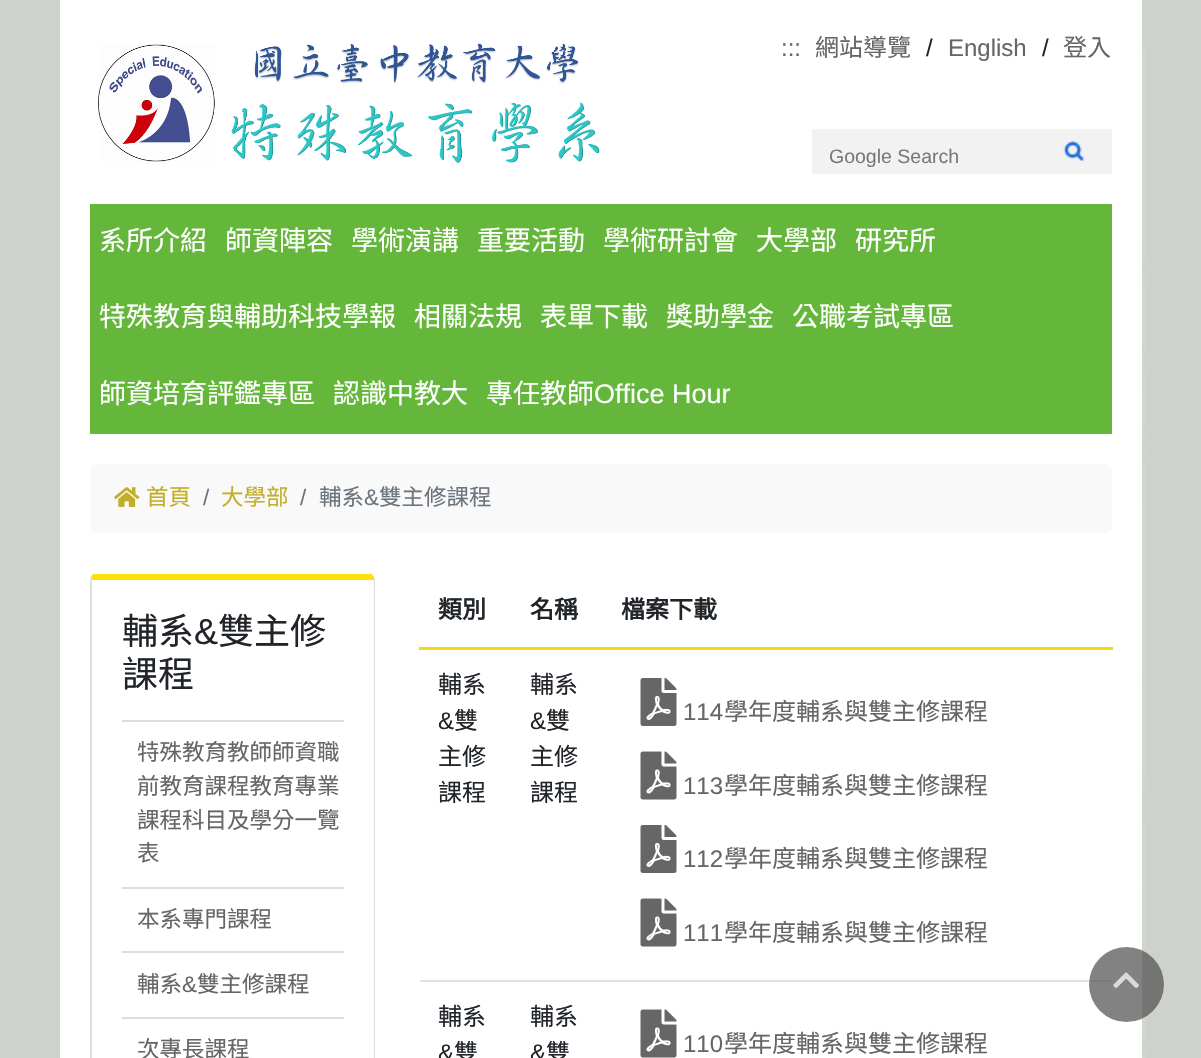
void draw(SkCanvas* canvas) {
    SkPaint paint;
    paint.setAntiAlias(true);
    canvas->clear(0xFFCED2CC);
    canvas->drawImageRect(SkImages::DeferredFromEncodedData(SkData::MakeFromFileName("img1.png")), SkRect::MakeXYWH(1142, 45, 4, 1013), SkSamplingOptions());
    paint.setColor(0xFFFFFFFF);
    canvas->drawRect(SkRect::MakeXYWH(60, 0, 1082, 204), paint);
    canvas->drawImageRect(SkImages::DeferredFromEncodedData(SkData::MakeFromFileName("img2.png")), SkRect::MakeXYWH(98, 43, 502, 120), SkSamplingOptions());
    SkFont font1(fontMgr->matchFamilyStyle("Liberation Sans", SkFontStyle::Normal()), 24);
    font1.setSubpixel(true);
    paint.setColor(0xFF666666);
    canvas->drawString(":::", 781, 56, font1, paint);
    SkFont font2(fontMgr->matchFamilyStyle("Noto Sans CJK TC", SkFontStyle::Normal()), 24);
    font2.setSubpixel(true);
    canvas->drawString("網站導覽", 815, 56, font2, paint);
    paint.setColor(0xFF212529);
    canvas->drawString("/", 926, 56, font1, paint);
    paint.setColor(0xFF666666);
    canvas->drawString("English", 948, 56, font1, paint);
    paint.setColor(0xFF212529);
    canvas->drawString("/", 1042, 56, font1, paint);
    paint.setColor(0xFF666666);
    canvas->drawString("登入", 1063, 56, font2, paint);
    paint.setColor(0xFFF2F2F2);
    canvas->drawRect(SkRect::MakeXYWH(812, 129, 300, 45), paint);
    SkFont font3(fontMgr->matchFamilyStyle("Liberation Sans", SkFontStyle::Normal()), 19.5f);
    font3.setSubpixel(true);
    paint.setColor(0xFF797979);
    canvas->drawString("Google Search", 829, 163, font3, paint);
    canvas->drawImageRect(SkImages::DeferredFromEncodedData(SkData::MakeFromFileName("img3.png")), SkRect::MakeXYWH(1063, 141, 22, 20), SkSamplingOptions());
    paint.setColor(0xFFFFFFFF);
    canvas->drawRect(SkRect::MakeXYWH(60, 204, 1082, 854), paint);
    paint.setColor(0xFF65B73C);
    canvas->drawRect(SkRect::MakeXYWH(90, 204, 1022, 230), paint);
    SkFont font4(fontMgr->matchFamilyStyle("Noto Sans CJK TC", SkFontStyle::Normal()), 27);
    font4.setSubpixel(true);
    paint.setColor(0xFFFFFFFF);
    canvas->drawString("系所介紹", 99, 250, font4, paint);
    canvas->drawString("師資陣容", 225, 250, font4, paint);
    canvas->drawString("學術演講", 351, 250, font4, paint);
    canvas->drawString("重要活動", 477, 250, font4, paint);
    canvas->drawString("學術研討會", 603, 250, font4, paint);
    canvas->drawString("大學部", 756, 250, font4, paint);
    canvas->drawString("研究所", 855, 250, font4, paint);
    canvas->drawString("特殊教育與輔助科技學報", 99, 326, font4, paint);
    canvas->drawString("相關法規", 414, 326, font4, paint);
    canvas->drawString("表單下載", 540, 326, font4, paint);
    canvas->drawString("獎助學金", 666, 326, font4, paint);
    canvas->drawString("公職考試專區", 792, 326, font4, paint);
    canvas->drawString("師資培育評鑑專區", 99, 403, font4, paint);
    canvas->drawString("認識中教大", 333, 403, font4, paint);
    canvas->drawString("專任教師", 486, 403, font4, paint);
    SkFont font5(fontMgr->matchFamilyStyle("Liberation Sans", SkFontStyle::Normal()), 27);
    font5.setSubpixel(true);
    canvas->drawString("Office Hour", 594, 403, font5, paint);
    paint.setColor(0xFFF9F9F9);
    canvas->drawRoundRect(SkRect::MakeXYWH(90, 464, 1022, 69), 6, 6, paint);
    canvas->drawImageRect(SkImages::DeferredFromEncodedData(SkData::MakeFromFileName("img4.png")), SkRect::MakeXYWH(114, 487, 26, 20), SkSamplingOptions());
    SkFont font6(fontMgr->matchFamilyStyle("Noto Sans CJK TC", SkFontStyle::Normal()), 22.5f);
    font6.setSubpixel(true);
    paint.setColor(0xFFC2AE29);
    canvas->drawString("首頁", 146, 505, font6, paint);
    SkFont font7(fontMgr->matchFamilyStyle("Liberation Sans", SkFontStyle::Normal()), 22.5f);
    font7.setSubpixel(true);
    paint.setColor(0xFF6C757D);
    canvas->drawString("/", 203, 505, font7, paint);
    paint.setColor(0xFFC2AE29);
    canvas->drawString("大學部", 221, 505, font6, paint);
    paint.setColor(0xFF6C757D);
    canvas->drawString("/", 300, 505, font7, paint);
    canvas->drawString("輔系", 319, 505, font6, paint);
    canvas->drawString("&", 364, 505, font7, paint);
    canvas->drawString("雙主修課程", 379, 505, font6, paint);
    paint.setColor(0xFFFFDF08);
    canvas->drawPath(SkPathBuilder().moveTo(91, 577).lineTo(93, 574).lineTo(372, 574).lineTo(374, 577).lineTo(374, 580).lineTo(92, 580).lineTo(92, 582).close().detach(), paint);
    paint.setColor(0xFFDDDDDD);
    canvas->drawPath(SkPathBuilder().moveTo(375, 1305).lineTo(375, 579).lineTo(374, 577).lineTo(374, 580).lineTo(374, 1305).lineTo(373, 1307).lineTo(374, 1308).close().detach(), paint);
    canvas->drawPath(SkPathBuilder().moveTo(90, 579).lineTo(90, 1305).lineTo(91, 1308).lineTo(92, 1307).lineTo(92, 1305).lineTo(92, 582).lineTo(91, 577).close().detach(), paint);
    SkFont font8(fontMgr->matchFamilyStyle("Noto Sans CJK TC", SkFontStyle::Normal()), 36);
    font8.setSubpixel(true);
    paint.setColor(0xFF212529);
    canvas->drawString("輔系", 122, 644, font8, paint);
    SkFont font9(fontMgr->matchFamilyStyle("Liberation Sans", SkFontStyle::Normal()), 36);
    font9.setSubpixel(true);
    canvas->drawString("&", 194, 644, font9, paint);
    canvas->drawString("雙主修", 218, 644, font8, paint);
    canvas->drawString("課程", 122, 687, font8, paint);
    paint.setColor(0xFFDDDDDD);
    canvas->drawRect(SkRect::MakeXYWH(122, 720, 222, 2), paint);
    paint.setColor(0xFF666666);
    canvas->drawString("特殊教育教師師資職", 137, 760, font6, paint);
    canvas->drawString("前教育課程教育專業", 137, 794, font6, paint);
    canvas->drawString("課程科目及學分一覽", 137, 828, font6, paint);
    canvas->drawString("表", 137, 861, font6, paint);
    paint.setColor(0xFFDDDDDD);
    canvas->drawRect(SkRect::MakeXYWH(122, 887, 222, 2), paint);
    paint.setColor(0xFF666666);
    canvas->drawString("本系專門課程", 137, 927, font6, paint);
    paint.setColor(0xFFDDDDDD);
    canvas->drawRect(SkRect::MakeXYWH(122, 951, 222, 2), paint);
    paint.setColor(0xFF666666);
    canvas->drawString("輔系", 137, 992, font6, paint);
    canvas->drawString("&", 182, 992, font7, paint);
    canvas->drawString("雙主修課程", 197, 992, font6, paint);
    paint.setColor(0xFFDDDDDD);
    canvas->drawRect(SkRect::MakeXYWH(122, 1017, 222, 2), paint);
    paint.setColor(0xFF666666);
    canvas->drawString("次專長課程", 137, 1057, font6, paint);
    SkFont font10(fontMgr->matchFamilyStyle("Noto Sans CJK TC", SkFontStyle::Bold()), 24);
    font10.setSubpixel(true);
    paint.setColor(0xFF212529);
    canvas->drawString("類別", 438, 618, font10, paint);
    canvas->drawString("名稱", 530, 618, font10, paint);
    paint.setColor(0xFFF8D90B);
    canvas->drawRect(SkRect::MakeXYWH(419, 647, 694, 3), paint);
    paint.setColor(0xFF212529);
    canvas->drawString("檔案下載", 621, 618, font10, paint);
    canvas->drawString("輔系", 438, 693, font2, paint);
    canvas->drawString("&", 438, 729, font1, paint);
    canvas->drawString("雙", 454, 729, font2, paint);
    canvas->drawString("主修", 438, 765, font2, paint);
    canvas->drawString("課程", 438, 801, font2, paint);
    canvas->drawString("輔系", 530, 693, font2, paint);
    canvas->drawString("&", 530, 729, font1, paint);
    canvas->drawString("雙", 546, 729, font2, paint);
    canvas->drawString("主修", 530, 765, font2, paint);
    canvas->drawString("課程", 530, 801, font2, paint);
    canvas->drawImageRect(SkImages::DeferredFromEncodedData(SkData::MakeFromFileName("img5.png")), SkRect::MakeXYWH(640, 678, 37, 48), SkSamplingOptions());
    paint.setColor(0xFF666666);
    canvas->drawString("114", 683, 720, font1, paint);
    canvas->drawString("學年度輔系與雙主修課程", 724, 720, font2, paint);
    canvas->drawImageRect(SkImages::DeferredFromEncodedData(SkData::MakeFromFileName("img6.png")), SkRect::MakeXYWH(640, 751, 37, 49), SkSamplingOptions());
    canvas->drawString("113", 683, 794, font1, paint);
    canvas->drawString("學年度輔系與雙主修課程", 724, 794, font2, paint);
    canvas->drawImageRect(SkImages::DeferredFromEncodedData(SkData::MakeFromFileName("img5.png")), SkRect::MakeXYWH(640, 825, 37, 48), SkSamplingOptions());
    canvas->drawString("112", 683, 867, font1, paint);
    canvas->drawString("學年度輔系與雙主修課程", 724, 867, font2, paint);
    canvas->drawImageRect(SkImages::DeferredFromEncodedData(SkData::MakeFromFileName("img6.png")), SkRect::MakeXYWH(640, 898, 37, 49), SkSamplingOptions());
    canvas->drawString("111", 683, 941, font1, paint);
    canvas->drawString("學年度輔系與雙主修課程", 724, 941, font2, paint);
    paint.setColor(0xFF212529);
    canvas->drawString("輔系", 438, 1025, font2, paint);
    canvas->drawString("&", 438, 1061, font1, paint);
    canvas->drawString("雙", 454, 1061, font2, paint);
    canvas->drawString("輔系", 530, 1025, font2, paint);
    canvas->drawString("&", 530, 1061, font1, paint);
    canvas->drawString("雙", 546, 1061, font2, paint);
    paint.setColor(0xFFDEE2E6);
    canvas->drawRect(SkRect::MakeXYWH(420, 980, 692, 2), paint);
    canvas->drawImageRect(SkImages::DeferredFromEncodedData(SkData::MakeFromFileName("img6.png")), SkRect::MakeXYWH(640, 1009, 37, 49), SkSamplingOptions());
    paint.setColor(0xFF666666);
    canvas->drawString("110", 683, 1052, font1, paint);
    canvas->drawString("學年度輔系與雙主修課程", 724, 1052, font2, paint);
    paint.setColor(0xB34D4D4D);
    canvas->drawCircle(1126.5f, 984.5f, 37.5f, paint);
    canvas->drawImageRect(SkImages::DeferredFromEncodedData(SkData::MakeFromFileName("img7.png")), SkRect::MakeXYWH(1113, 972, 26, 16), SkSamplingOptions());
}
